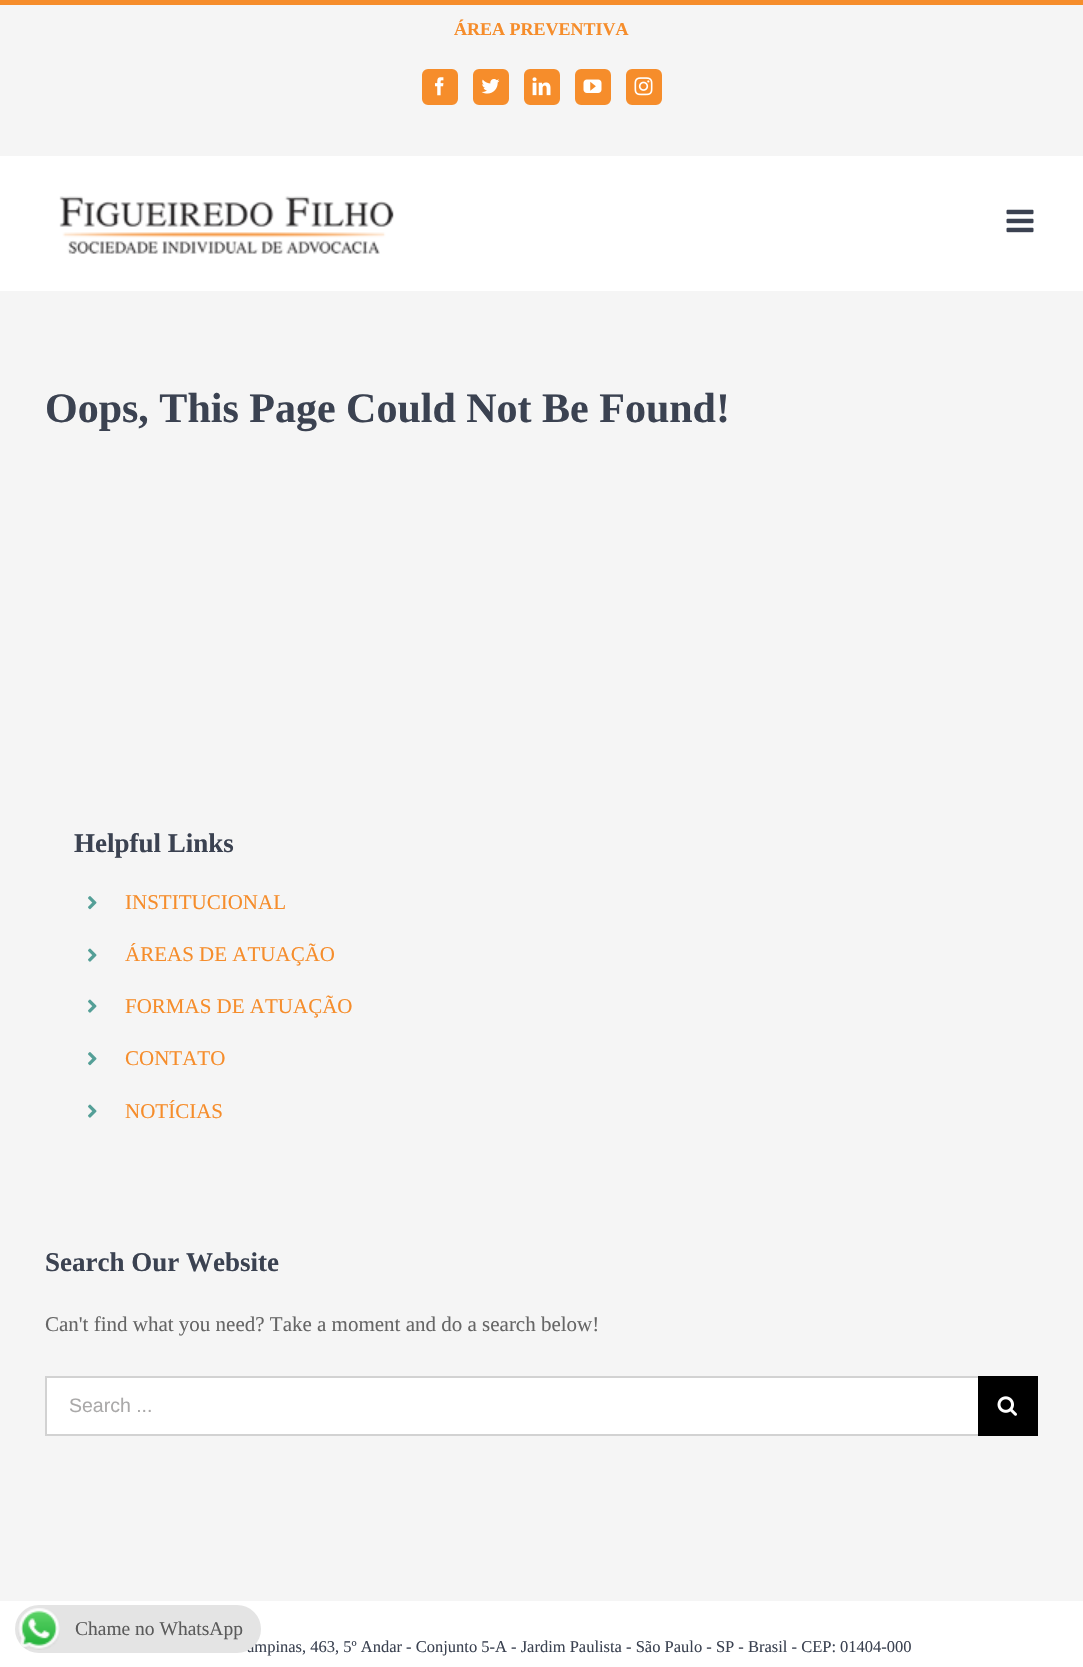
void draw(SkCanvas* canvas) {
    SkPaint paint;
    paint.setAntiAlias(true);
    canvas->clear(0xFFFFFFFF);
    paint.setColor(0xFFF5F5F5);
    canvas->drawRect(SkRect::MakeXYWH(0, 5, 1083, 151), paint);
    paint.setColor(0xFFF68D2B);
    canvas->drawRect(SkRect::MakeXYWH(0, 0, 1083, 5), paint);
    SkFont font1(fontMgr->matchFamilyStyle("Liberation Serif", SkFontStyle::Bold()), 18);
    font1.setSubpixel(true);
    canvas->drawString("ÁREA PREVENTIVA", 454, 35, font1, paint);
    canvas->drawRoundRect(SkRect::MakeXYWH(423, 70, 34, 34), 5, 5, paint);
    paint.setStyle(SkPaint::kStroke_Style);
    paint.setStrokeWidth(2);
    canvas->drawRoundRect(SkRect::MakeXYWH(423, 70, 34, 34), 5, 5, paint);
    canvas->drawImageRect(SkImages::DeferredFromEncodedData(SkData::MakeFromFileName("img1.png")), SkRect::MakeXYWH(435, 77, 9, 19), SkSamplingOptions());
    paint.setStyle(SkPaint::kFill_Style);
    canvas->drawRoundRect(SkRect::MakeXYWH(474, 70, 34, 34), 5, 5, paint);
    paint.setStyle(SkPaint::kStroke_Style);
    canvas->drawRoundRect(SkRect::MakeXYWH(474, 70, 34, 34), 5, 5, paint);
    canvas->drawImageRect(SkImages::DeferredFromEncodedData(SkData::MakeFromFileName("img2.png")), SkRect::MakeXYWH(481, 79, 19, 15), SkSamplingOptions());
    paint.setStyle(SkPaint::kFill_Style);
    canvas->drawRoundRect(SkRect::MakeXYWH(525, 70, 34, 34), 5, 5, paint);
    paint.setStyle(SkPaint::kStroke_Style);
    canvas->drawRoundRect(SkRect::MakeXYWH(525, 70, 34, 34), 5, 5, paint);
    canvas->drawImageRect(SkImages::DeferredFromEncodedData(SkData::MakeFromFileName("img3.png")), SkRect::MakeXYWH(532, 77, 19, 19), SkSamplingOptions());
    paint.setStyle(SkPaint::kFill_Style);
    canvas->drawRoundRect(SkRect::MakeXYWH(576, 70, 34, 34), 5, 5, paint);
    paint.setStyle(SkPaint::kStroke_Style);
    canvas->drawRoundRect(SkRect::MakeXYWH(576, 70, 34, 34), 5, 5, paint);
    canvas->drawImageRect(SkImages::DeferredFromEncodedData(SkData::MakeFromFileName("img4.png")), SkRect::MakeXYWH(583, 79, 19, 14), SkSamplingOptions());
    paint.setStyle(SkPaint::kFill_Style);
    canvas->drawRoundRect(SkRect::MakeXYWH(627, 70, 34, 34), 5, 5, paint);
    paint.setStyle(SkPaint::kStroke_Style);
    canvas->drawRoundRect(SkRect::MakeXYWH(627, 70, 34, 34), 5, 5, paint);
    canvas->drawImageRect(SkImages::DeferredFromEncodedData(SkData::MakeFromFileName("img5.png")), SkRect::MakeXYWH(634, 77, 19, 19), SkSamplingOptions());
    canvas->drawImageRect(SkImages::DeferredFromEncodedData(SkData::MakeFromFileName("img6.png")), SkRect::MakeXYWH(59, 196, 335, 58), SkSamplingOptions());
    canvas->drawImageRect(SkImages::DeferredFromEncodedData(SkData::MakeFromFileName("img7.png")), SkRect::MakeXYWH(1006, 209, 28, 24), SkSamplingOptions());
    paint.setStyle(SkPaint::kFill_Style);
    paint.setColor(0xFFF5F5F5);
    canvas->drawRect(SkRect::MakeXYWH(0, 291, 1083, 1310), paint);
    SkFont font2(fontMgr->matchFamilyStyle("Liberation Serif", SkFontStyle::Bold()), 42);
    font2.setSubpixel(true);
    paint.setColor(0xFF3B4251);
    canvas->drawString("Oops, This Page Could Not Be Found!", 45, 422, font2, paint);
    SkFont font3(fontMgr->matchFamilyStyle("Liberation Serif", SkFontStyle::Bold()), 27);
    font3.setSubpixel(true);
    canvas->drawString("Helpful Links", 74, 852, font3, paint);
    canvas->drawImageRect(SkImages::DeferredFromEncodedData(SkData::MakeFromFileName("img8.png")), SkRect::MakeXYWH(88, 896, 9, 14), SkSamplingOptions());
    SkFont font4(fontMgr->matchFamilyStyle("Liberation Serif", SkFontStyle::Normal()), 21);
    font4.setSubpixel(true);
    paint.setColor(0xFFF68D2B);
    canvas->drawString("INSTITUCIONAL", 125, 909, font4, paint);
    canvas->drawImageRect(SkImages::DeferredFromEncodedData(SkData::MakeFromFileName("img9.png")), SkRect::MakeXYWH(88, 948, 9, 14), SkSamplingOptions());
    canvas->drawString("ÁREAS DE ATUAÇÃO", 125, 961, font4, paint);
    canvas->drawImageRect(SkImages::DeferredFromEncodedData(SkData::MakeFromFileName("img9.png")), SkRect::MakeXYWH(88, 999, 9, 14), SkSamplingOptions());
    canvas->drawString("FORMAS DE ATUAÇÃO", 125, 1013, font4, paint);
    canvas->drawImageRect(SkImages::DeferredFromEncodedData(SkData::MakeFromFileName("img8.png")), SkRect::MakeXYWH(88, 1052, 9, 14), SkSamplingOptions());
    canvas->drawString("CONTATO", 125, 1065, font4, paint);
    canvas->drawImageRect(SkImages::DeferredFromEncodedData(SkData::MakeFromFileName("img9.png")), SkRect::MakeXYWH(88, 1104, 9, 14), SkSamplingOptions());
    canvas->drawString("NOTÍCIAS", 125, 1118, font4, paint);
    paint.setColor(0xFF3B4251);
    canvas->drawString("Search Our Website", 45, 1271, font3, paint);
    paint.setColor(0xFF666666);
    canvas->drawString("Can't find what you need? Take a moment and do a search below!", 45, 1331, font4, paint);
    paint.setColor(0xFFFFFFFF);
    canvas->drawRect(SkRect::MakeXYWH(47, 1378, 931, 56), paint);
    paint.setColor(0xFFD2D2D2);
    canvas->drawRect(SkRect::MakeXYWH(45, 1376, 933, 2), paint);
    canvas->drawRect(SkRect::MakeXYWH(45, 1434, 933, 2), paint);
    canvas->drawRect(SkRect::MakeXYWH(45, 1376, 2, 60), paint);
    SkFont font5(fontMgr->matchFamilyStyle("Liberation Sans", SkFontStyle::Normal()), 19.5f);
    font5.setSubpixel(true);
    paint.setColor(0xFFAAA9A9);
    canvas->drawString("Search ...", 69, 1412, font5, paint);
    paint.setColor(0xFF000000);
    canvas->drawRect(SkRect::MakeXYWH(978, 1376, 60, 60), paint);
    canvas->drawImageRect(SkImages::DeferredFromEncodedData(SkData::MakeFromFileName("img10.png")), SkRect::MakeXYWH(997, 1396, 20, 20), SkSamplingOptions());
    SkFont font6(fontMgr->matchFamilyStyle("Liberation Serif", SkFontStyle::Normal()), 16.5f);
    font6.setSubpixel(true);
    paint.setColor(0xFF3B4251);
    canvas->drawString("ampinas, 463, 5º Andar - Conjunto 5-A - Jardim Paulista - São Paulo - SP - Brasil - CEP: 01404-000", 247, 1652, font6, paint);
    paint.setColor(0xFFE4E4E4);
    canvas->drawRoundRect(SkRect::MakeXYWH(15, 1605, 246, 48), 24, 24, paint);
    canvas->drawImageRect(SkImages::DeferredFromEncodedData(SkData::MakeFromFileName("img11.png")), SkRect::MakeXYWH(18, 1608, 42, 42), SkSamplingOptions());
    SkFont font7(fontMgr->matchFamilyStyle("Liberation Serif", SkFontStyle::Normal()), 19.5f);
    font7.setSubpixel(true);
    paint.setColor(0xFF5B5B5B);
    canvas->drawString("Chame no WhatsApp", 75, 1635, font7, paint);
}
